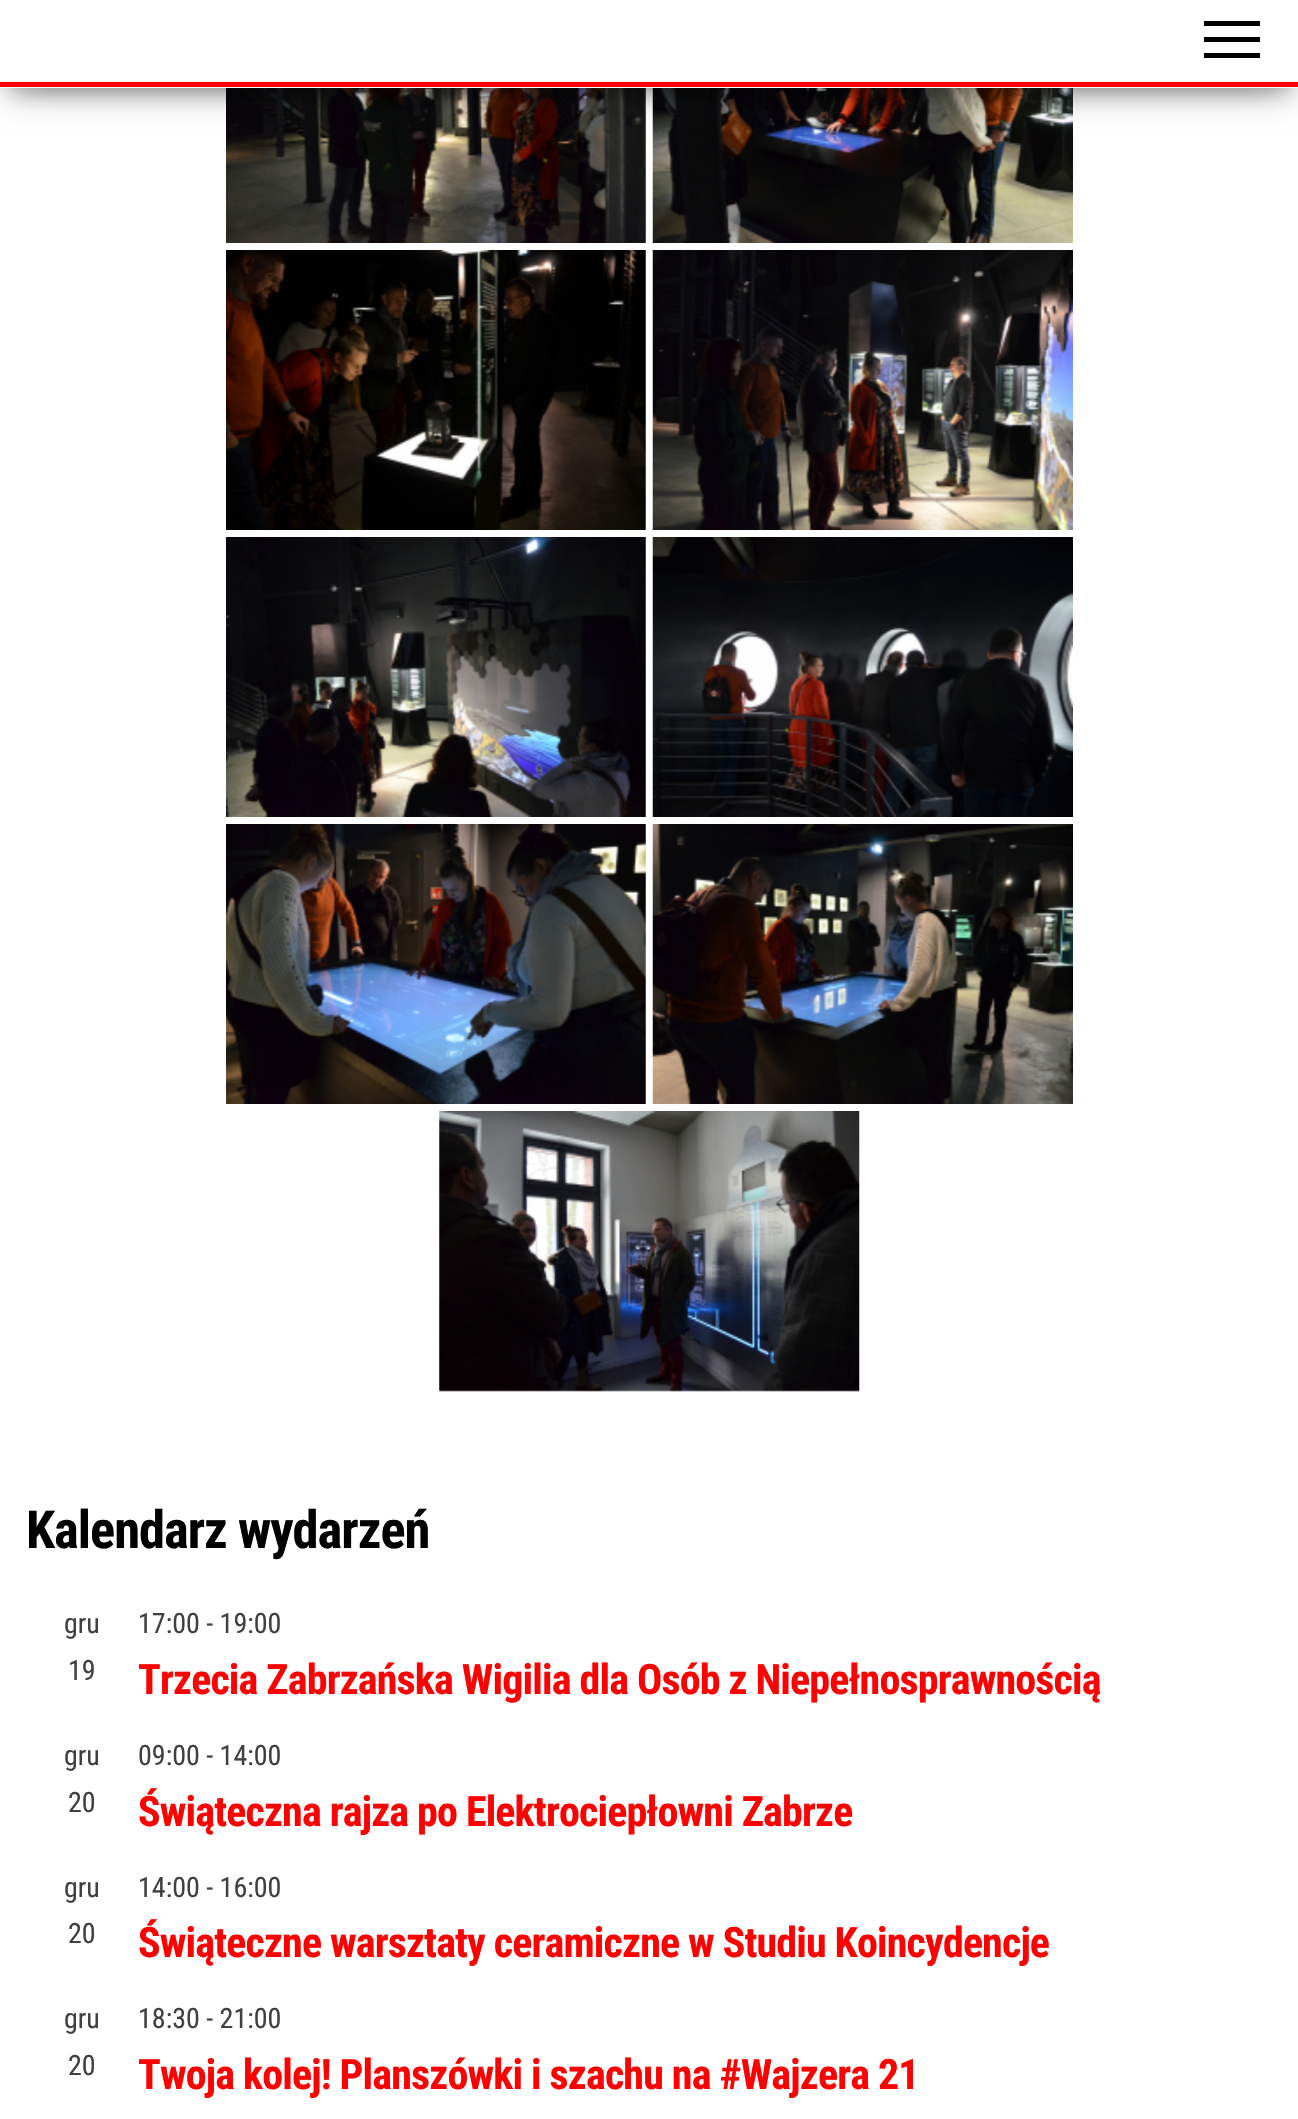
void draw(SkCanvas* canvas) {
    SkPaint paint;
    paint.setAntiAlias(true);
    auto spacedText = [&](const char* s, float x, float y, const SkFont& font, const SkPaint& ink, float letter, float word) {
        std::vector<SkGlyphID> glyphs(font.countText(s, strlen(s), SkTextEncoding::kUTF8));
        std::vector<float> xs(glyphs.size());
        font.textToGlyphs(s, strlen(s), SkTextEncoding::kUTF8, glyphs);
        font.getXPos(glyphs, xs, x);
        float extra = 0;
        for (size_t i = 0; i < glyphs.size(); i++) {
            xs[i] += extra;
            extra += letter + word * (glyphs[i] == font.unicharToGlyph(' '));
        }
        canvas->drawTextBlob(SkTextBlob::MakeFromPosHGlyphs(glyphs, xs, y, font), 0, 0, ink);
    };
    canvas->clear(0xFFFFFFFF);
    canvas->drawImageRect(SkImages::DeferredFromEncodedData(SkData::MakeFromFileName("img1.png")), SkRect::MakeXYWH(226, 88, 420, 155), SkSamplingOptions());
    canvas->drawImageRect(SkImages::DeferredFromEncodedData(SkData::MakeFromFileName("img2.png")), SkRect::MakeXYWH(652, 88, 421, 155), SkSamplingOptions());
    paint.setColor(0x33000000);
    paint.setMaskFilter(SkMaskFilter::MakeBlur(kNormal_SkBlurStyle, 9));
    canvas->drawRect(SkRect::MakeXYWH(9, 23, 1281, 70), paint);
    paint.setMaskFilter(nullptr);
    paint.setColor(0x1F000000);
    paint.setMaskFilter(SkMaskFilter::MakeBlur(kNormal_SkBlurStyle, 17.5f));
    canvas->drawRect(SkRect::MakeXYWH(0, 5, 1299, 88), paint);
    paint.setMaskFilter(nullptr);
    paint.setColor(0x6B000000);
    paint.setMaskFilter(SkMaskFilter::MakeBlur(kNormal_SkBlurStyle, 17.5f));
    canvas->drawRect(SkRect::MakeXYWH(21, 39, 1257, 45), paint);
    paint.setMaskFilter(nullptr);
    paint.setColor(0xFFFFFFFF);
    canvas->drawRect(SkRect::MakeXYWH(0, 0, 1298, 88), paint);
    paint.setColor(0xFFFF0000);
    canvas->drawRect(SkRect::MakeXYWH(0, 82, 1298, 5), paint);
    paint.setColor(0xFF000000);
    canvas->drawRect(SkRect::MakeXYWH(1204, 21, 56, 5), paint);
    canvas->drawRect(SkRect::MakeXYWH(1204, 37, 56, 5), paint);
    canvas->drawRect(SkRect::MakeXYWH(1204, 53, 56, 5), paint);
    canvas->drawImageRect(SkImages::DeferredFromEncodedData(SkData::MakeFromFileName("img3.png")), SkRect::MakeXYWH(226, 250, 420, 280), SkSamplingOptions());
    canvas->drawImageRect(SkImages::DeferredFromEncodedData(SkData::MakeFromFileName("img4.png")), SkRect::MakeXYWH(652, 250, 421, 280), SkSamplingOptions());
    canvas->drawImageRect(SkImages::DeferredFromEncodedData(SkData::MakeFromFileName("img5.png")), SkRect::MakeXYWH(226, 537, 420, 280), SkSamplingOptions());
    canvas->drawImageRect(SkImages::DeferredFromEncodedData(SkData::MakeFromFileName("img6.png")), SkRect::MakeXYWH(652, 537, 421, 280), SkSamplingOptions());
    canvas->drawImageRect(SkImages::DeferredFromEncodedData(SkData::MakeFromFileName("img7.png")), SkRect::MakeXYWH(226, 824, 420, 280), SkSamplingOptions());
    canvas->drawImageRect(SkImages::DeferredFromEncodedData(SkData::MakeFromFileName("img8.png")), SkRect::MakeXYWH(652, 824, 421, 280), SkSamplingOptions());
    canvas->drawImageRect(SkImages::DeferredFromEncodedData(SkData::MakeFromFileName("img9.png")), SkRect::MakeXYWH(439, 1111, 421, 281), SkSamplingOptions());
    SkFont font1(fontMgr->matchFamilyStyle("Roboto Condensed", SkFontStyle::Bold()), 52.5f);
    font1.setSubpixel(true);
    spacedText("Kalendarz wydarzeń", 26, 1548, font1, paint, -1, 0);
    SkFont font2(fontMgr->matchFamilyStyle("Roboto Condensed", SkFontStyle::Normal()), 28);
    font2.setSubpixel(true);
    paint.setColor(0xFF404040);
    canvas->drawString("gru", 64, 1633, font2, paint);
    canvas->drawString("19", 68, 1680, font2, paint);
    canvas->drawString("17:00 - 19:00", 138, 1633, font2, paint);
    SkFont font3(fontMgr->matchFamilyStyle("Roboto Condensed", SkFontStyle::Bold()), 42);
    font3.setSubpixel(true);
    paint.setColor(0xFFFF0000);
    spacedText("Trzecia Zabrzańska Wigilia dla Osób z Niepełnosprawnością", 138, 1694, font3, paint, -0.85f, 0);
    paint.setColor(0xFF404040);
    canvas->drawString("gru", 64, 1765, font2, paint);
    canvas->drawString("20", 68, 1812, font2, paint);
    canvas->drawString("09:00 - 14:00", 138, 1765, font2, paint);
    paint.setColor(0xFFFF0000);
    spacedText("Świąteczna rajza po Elektrociepłowni Zabrze", 138, 1826, font3, paint, -0.85f, 0);
    paint.setColor(0xFF404040);
    canvas->drawString("gru", 64, 1897, font2, paint);
    canvas->drawString("20", 68, 1943, font2, paint);
    canvas->drawString("14:00 - 16:00", 138, 1897, font2, paint);
    paint.setColor(0xFFFF0000);
    spacedText("Świąteczne warsztaty ceramiczne w Studiu Koincydencje", 138, 1957, font3, paint, -0.85f, 0);
    paint.setColor(0xFF404040);
    canvas->drawString("gru", 64, 2028, font2, paint);
    canvas->drawString("20", 68, 2075, font2, paint);
    canvas->drawString("18:30 - 21:00", 138, 2028, font2, paint);
    paint.setColor(0xFFFF0000);
    spacedText("Twoja kolej! Planszówki i szachu na #Wajzera 21", 138, 2089, font3, paint, -0.85f, 0);
}
